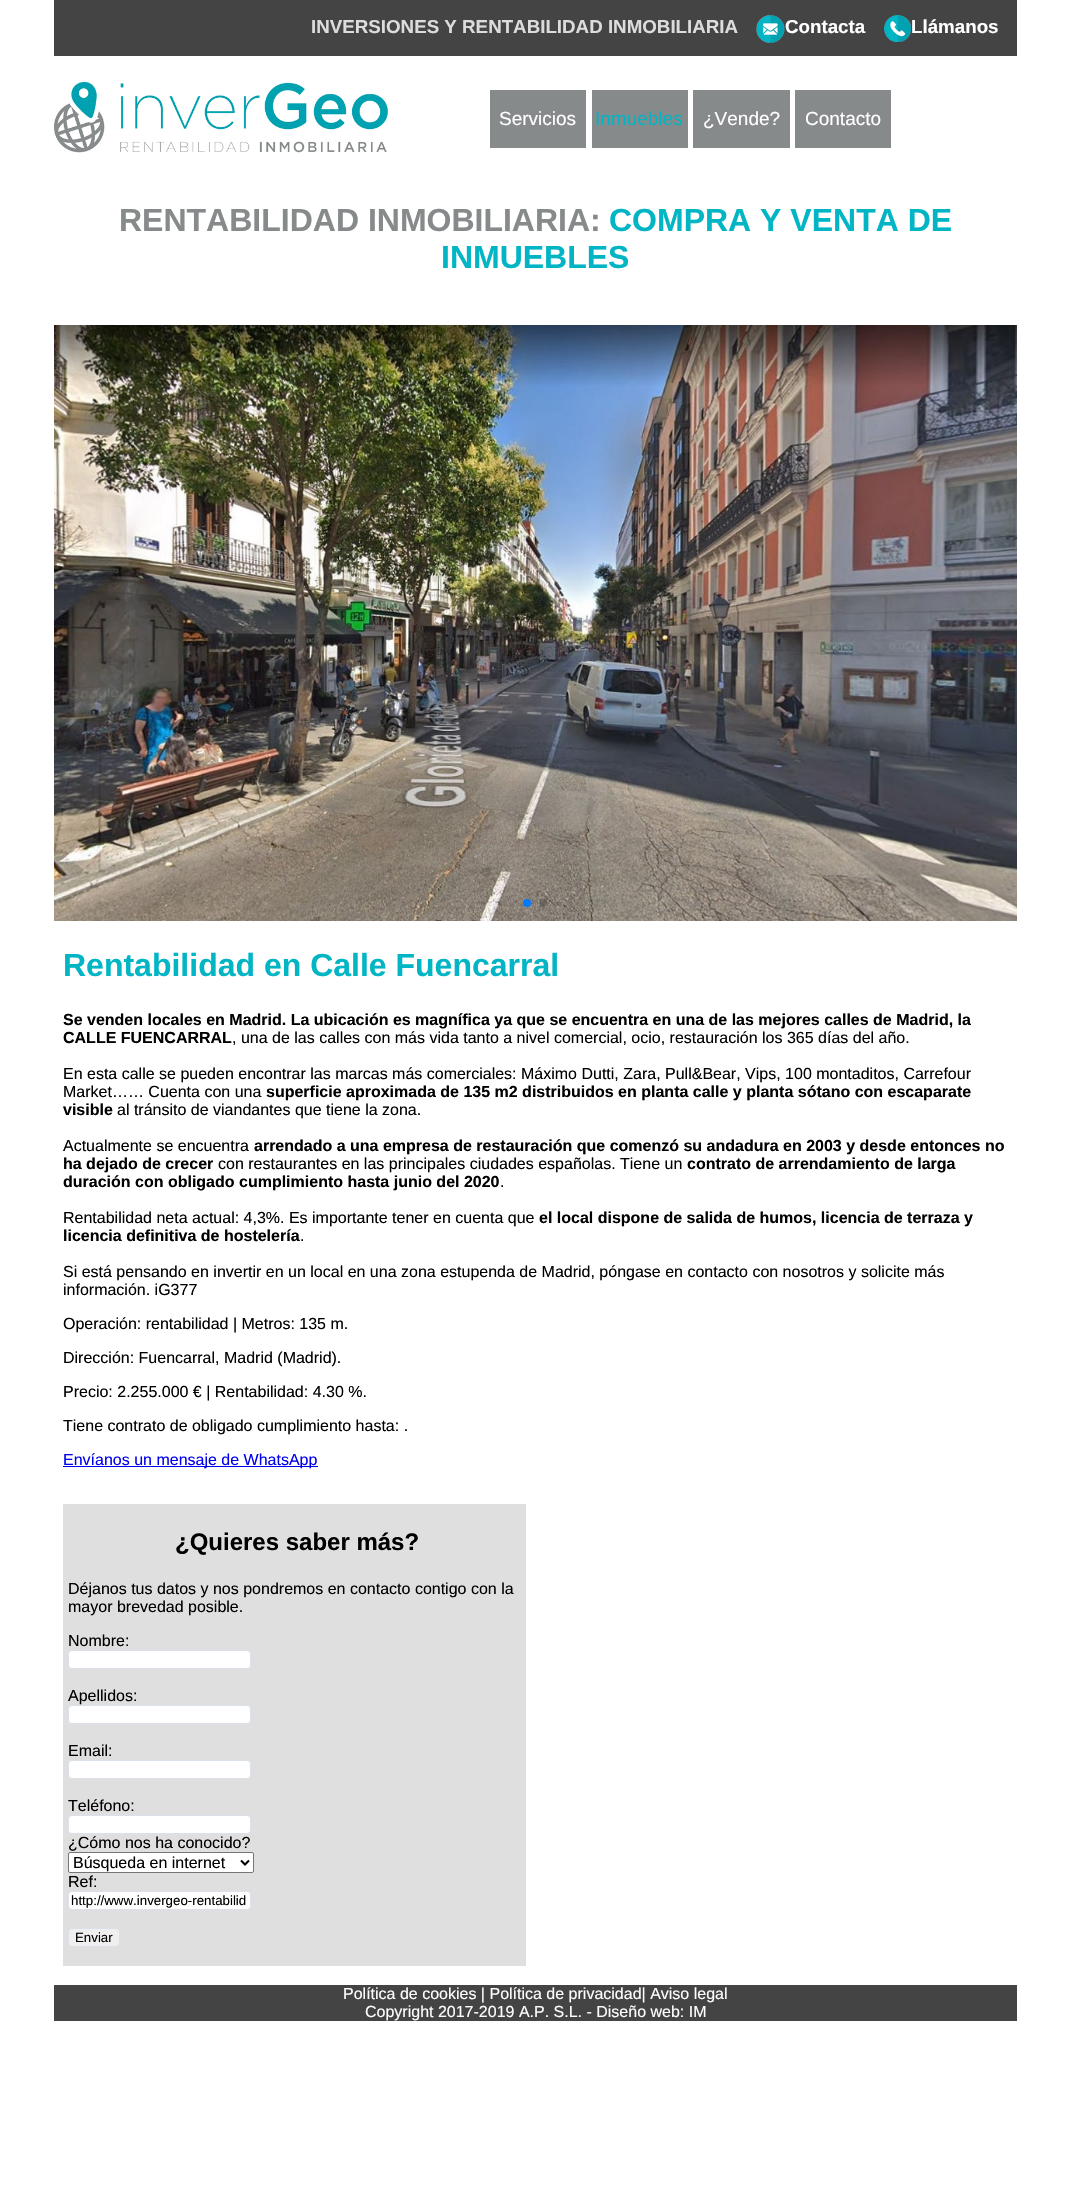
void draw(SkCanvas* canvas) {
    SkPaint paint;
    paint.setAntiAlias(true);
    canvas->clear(0xFFFFFFFF);
    paint.setColor(0xFF444444);
    canvas->drawRect(SkRect::MakeXYWH(54, 0, 963, 56), paint);
    SkFont font1(fontMgr->matchFamilyStyle("Liberation Sans", SkFontStyle::Bold()), 18.75f);
    font1.setSubpixel(true);
    paint.setColor(0xFFDCDCDC);
    canvas->drawString("INVERSIONES Y RENTABILIDAD INMOBILIARIA", 311, 33, font1, paint);
    canvas->drawImageRect(SkImages::DeferredFromEncodedData(SkData::MakeFromFileName("img1.png")), SkRect::MakeXYWH(756, 15, 29, 28), SkSamplingOptions());
    paint.setColor(0xFFFFFFFF);
    canvas->drawString("Contacta", 785, 33, font1, paint);
    canvas->drawImageRect(SkImages::DeferredFromEncodedData(SkData::MakeFromFileName("img2.png")), SkRect::MakeXYWH(884, 15, 27, 27), SkSamplingOptions());
    canvas->drawString("Llámanos", 911, 33, font1, paint);
    canvas->drawImageRect(SkImages::DeferredFromEncodedData(SkData::MakeFromFileName("img3.png")), SkRect::MakeXYWH(54, 81, 334, 72), SkSamplingOptions());
    paint.setColor(0xFF868A8B);
    canvas->drawRect(SkRect::MakeXYWH(490, 90, 96, 58), paint);
    SkFont font2(fontMgr->matchFamilyStyle("Liberation Sans", SkFontStyle::Normal()), 19);
    font2.setSubpixel(true);
    paint.setColor(0xFFFFFFFF);
    canvas->drawString("Servicios", 499, 125, font2, paint);
    paint.setColor(0xFF868A8B);
    canvas->drawRect(SkRect::MakeXYWH(592, 90, 96, 58), paint);
    paint.setColor(0xFF01B5C5);
    canvas->drawString("Inmuebles", 595, 125, font2, paint);
    paint.setColor(0xFF868A8B);
    canvas->drawRect(SkRect::MakeXYWH(693, 90, 97, 58), paint);
    paint.setColor(0xFFFFFFFF);
    canvas->drawString("¿Vende?", 703, 125, font2, paint);
    paint.setColor(0xFF868A8B);
    canvas->drawRect(SkRect::MakeXYWH(795, 90, 96, 58), paint);
    paint.setColor(0xFFFFFFFF);
    canvas->drawString("Contacto", 805, 125, font2, paint);
    SkFont font3(fontMgr->matchFamilyStyle("Liberation Sans", SkFontStyle::Bold()), 32);
    font3.setSubpixel(true);
    paint.setColor(0xFF868A8B);
    canvas->drawString("RENTABILIDAD INMOBILIARIA:", 119, 231, font3, paint);
    paint.setColor(0xFF01B5C5);
    canvas->drawString("COMPRA Y VENTA DE", 609, 231, font3, paint);
    canvas->drawString("INMUEBLES", 441, 268, font3, paint);
    canvas->drawImageRect(SkImages::DeferredFromEncodedData(SkData::MakeFromFileName("img4.png")), SkRect::MakeXYWH(54, 325, 963, 596), SkSamplingOptions());
    paint.setColor(0xFF007AFF);
    canvas->drawCircle(527, 903, 4, paint);
    paint.setColor(0x33000000);
    canvas->drawCircle(543, 903, 4, paint);
    paint.setColor(0xFF01B5C5);
    canvas->drawString("Rentabilidad en Calle Fuencarral", 63, 976, font3, paint);
    SkFont font4(fontMgr->matchFamilyStyle("Liberation Sans", SkFontStyle::Bold()), 16);
    font4.setSubpixel(true);
    paint.setColor(0xFF000000);
    canvas->drawString("Se venden locales en Madrid. La ubicación es magnífica ya que se encuentra en una de las mejores calles de Madrid, la", 63, 1025, font4, paint);
    canvas->drawString("CALLE FUENCARRAL", 63, 1043, font4, paint);
    SkFont font5(fontMgr->matchFamilyStyle("Liberation Sans", SkFontStyle::Normal()), 16);
    font5.setSubpixel(true);
    canvas->drawString(", una de las calles con más vida tanto a nivel comercial, ocio, restauración los 365 días del año.", 232, 1043, font5, paint);
    canvas->drawString("En esta calle se pueden encontrar las marcas más comerciales: Máximo Dutti, Zara, Pull&Bear, Vips, 100 montaditos, Carrefour", 63, 1079, font5, paint);
    canvas->drawString("Market…… Cuenta con una", 63, 1097, font5, paint);
    canvas->drawString("superficie aproximada de 135 m2 distribuidos en planta calle y planta sótano con escaparate", 266, 1097, font4, paint);
    canvas->drawString("visible", 63, 1115, font4, paint);
    canvas->drawString("al tránsito de viandantes que tiene la zona.", 117, 1115, font5, paint);
    canvas->drawString("Actualmente se encuentra", 63, 1151, font5, paint);
    canvas->drawString("arrendado a una empresa de restauración que comenzó su andadura en 2003 y desde entonces no", 254, 1151, font4, paint);
    canvas->drawString("ha dejado de crecer", 63, 1169, font4, paint);
    canvas->drawString("con restaurantes en las principales ciudades españolas. Tiene un", 218, 1169, font5, paint);
    canvas->drawString("contrato de arrendamiento de larga", 687, 1169, font4, paint);
    canvas->drawString("duración con obligado cumplimiento hasta junio del 2020", 63, 1187, font4, paint);
    canvas->drawString(".", 500, 1187, font5, paint);
    canvas->drawString("Rentabilidad neta actual: 4,3%. Es importante tener en cuenta que", 63, 1223, font5, paint);
    canvas->drawString("el local dispone de salida de humos, licencia de terraza y", 539, 1223, font4, paint);
    canvas->drawString("licencia definitiva de hostelería", 63, 1241, font4, paint);
    canvas->drawString(".", 300, 1241, font5, paint);
    canvas->drawString("Si está pensando en invertir en un local en una zona estupenda de Madrid, póngase en contacto con nosotros y solicite más", 63, 1277, font5, paint);
    canvas->drawString("información. iG377", 63, 1295, font5, paint);
    canvas->drawString("Operación: rentabilidad | Metros: 135 m.", 63, 1329, font5, paint);
    canvas->drawString("Dirección: Fuencarral, Madrid (Madrid).", 63, 1363, font5, paint);
    canvas->drawString("Precio: 2.255.000 € | Rentabilidad: 4.30 %.", 63, 1397, font5, paint);
    canvas->drawString("Tiene contrato de obligado cumplimiento hasta: .", 63, 1431, font5, paint);
    paint.setColor(0xFF0000EE);
    canvas->drawRect(SkRect::MakeXYWH(63, 1466, 255, 1), paint);
    canvas->drawString("Envíanos un mensaje de WhatsApp", 63, 1465, font5, paint);
    paint.setColor(0xFFDFDFDF);
    canvas->drawRect(SkRect::MakeXYWH(63, 1504, 463, 462), paint);
    SkFont font6(fontMgr->matchFamilyStyle("Liberation Sans", SkFontStyle::Bold()), 24);
    font6.setSubpixel(true);
    paint.setColor(0xFF000000);
    canvas->drawString("¿Quieres saber más?", 175, 1550, font6, paint);
    canvas->drawString("Déjanos tus datos y nos pondremos en contacto contigo con la", 68, 1594, font5, paint);
    canvas->drawString("mayor brevedad posible.", 68, 1612, font5, paint);
    canvas->drawString("Nombre:", 68, 1646, font5, paint);
    paint.setColor(0xFFFFFFFF);
    canvas->drawRoundRect(SkRect::MakeXYWH(68.5f, 1650.5f, 182, 18), 3.5f, 3.5f, paint);
    paint.setStyle(SkPaint::kStroke_Style);
    paint.setStrokeWidth(1);
    paint.setColor(0xFFDBE1EB);
    canvas->drawRoundRect(SkRect::MakeXYWH(68.5f, 1650.5f, 182, 18), 3.5f, 3.5f, paint);
    paint.setStyle(SkPaint::kFill_Style);
    paint.setColor(0xFF000000);
    canvas->drawString("Apellidos:", 68, 1701, font5, paint);
    paint.setColor(0xFFFFFFFF);
    canvas->drawRoundRect(SkRect::MakeXYWH(68.5f, 1705.5f, 182, 18), 3.5f, 3.5f, paint);
    paint.setStyle(SkPaint::kStroke_Style);
    paint.setColor(0xFFDBE1EB);
    canvas->drawRoundRect(SkRect::MakeXYWH(68.5f, 1705.5f, 182, 18), 3.5f, 3.5f, paint);
    paint.setStyle(SkPaint::kFill_Style);
    paint.setColor(0xFF000000);
    canvas->drawString("Email:", 68, 1756, font5, paint);
    paint.setColor(0xFFFFFFFF);
    canvas->drawRoundRect(SkRect::MakeXYWH(68.5f, 1760.5f, 182, 18), 3.5f, 3.5f, paint);
    paint.setStyle(SkPaint::kStroke_Style);
    paint.setColor(0xFFDBE1EB);
    canvas->drawRoundRect(SkRect::MakeXYWH(68.5f, 1760.5f, 182, 18), 3.5f, 3.5f, paint);
    paint.setStyle(SkPaint::kFill_Style);
    paint.setColor(0xFF000000);
    canvas->drawString("Teléfono:", 68, 1811, font5, paint);
    paint.setColor(0xFFFFFFFF);
    canvas->drawRoundRect(SkRect::MakeXYWH(68.5f, 1815.5f, 182, 18), 3.5f, 3.5f, paint);
    paint.setStyle(SkPaint::kStroke_Style);
    paint.setColor(0xFFDBE1EB);
    canvas->drawRoundRect(SkRect::MakeXYWH(68.5f, 1815.5f, 182, 18), 3.5f, 3.5f, paint);
    paint.setStyle(SkPaint::kFill_Style);
    paint.setColor(0xFF000000);
    canvas->drawString("¿Cómo nos ha conocido?", 68, 1848, font5, paint);
    paint.setColor(0xFFFFFFFF);
    canvas->drawRoundRect(SkRect::MakeXYWH(68.5f, 1852.5f, 185, 20), 1.5f, 1.5f, paint);
    paint.setStyle(SkPaint::kStroke_Style);
    paint.setColor(0xFF767676);
    canvas->drawRoundRect(SkRect::MakeXYWH(68.5f, 1852.5f, 185, 20), 1.5f, 1.5f, paint);
    paint.setStrokeWidth(2);
    paint.setColor(0xFF000000);
    canvas->drawPath(SkPathBuilder().moveTo(241, 1860.5f).lineTo(245, 1864.5f).lineTo(249, 1860.5f).detach(), paint);
    paint.setStyle(SkPaint::kFill_Style);
    canvas->drawString("Búsqueda en internet", 73, 1868, font5, paint);
    canvas->drawString("Ref:", 68, 1887, font5, paint);
    paint.setColor(0xFFFFFFFF);
    canvas->drawRoundRect(SkRect::MakeXYWH(68.5f, 1891.5f, 182, 18), 3.5f, 3.5f, paint);
    paint.setStyle(SkPaint::kStroke_Style);
    paint.setStrokeWidth(1);
    paint.setColor(0xFFDBE1EB);
    canvas->drawRoundRect(SkRect::MakeXYWH(68.5f, 1891.5f, 182, 18), 3.5f, 3.5f, paint);
    SkFont font7(fontMgr->matchFamilyStyle("Liberation Sans", SkFontStyle::Normal()), 13.3f);
    font7.setSubpixel(true);
    paint.setStyle(SkPaint::kFill_Style);
    paint.setColor(0xFF000000);
    canvas->drawString("http://www.invergeo-rentabilid", 71, 1905, font7, paint);
    paint.setColor(0xFFEFEFEF);
    canvas->drawRoundRect(SkRect::MakeXYWH(68.5f, 1928.5f, 51, 18), 3.5f, 3.5f, paint);
    paint.setStyle(SkPaint::kStroke_Style);
    paint.setColor(0xFFDBE1EB);
    canvas->drawRoundRect(SkRect::MakeXYWH(68.5f, 1928.5f, 51, 18), 3.5f, 3.5f, paint);
    paint.setStyle(SkPaint::kFill_Style);
    paint.setColor(0xFF000000);
    canvas->drawString("Enviar", 75, 1942, font7, paint);
    paint.setColor(0xFF444444);
    canvas->drawRect(SkRect::MakeXYWH(54, 1985, 963, 36), paint);
    paint.setColor(0xFFFFFFFF);
    canvas->drawString("Política de cookies | Política de privacidad| Aviso legal", 343, 1999, font5, paint);
    canvas->drawString("Copyright 2017-2019 A.P. S.L. - Diseño web: IM", 365, 2017, font5, paint);
}
